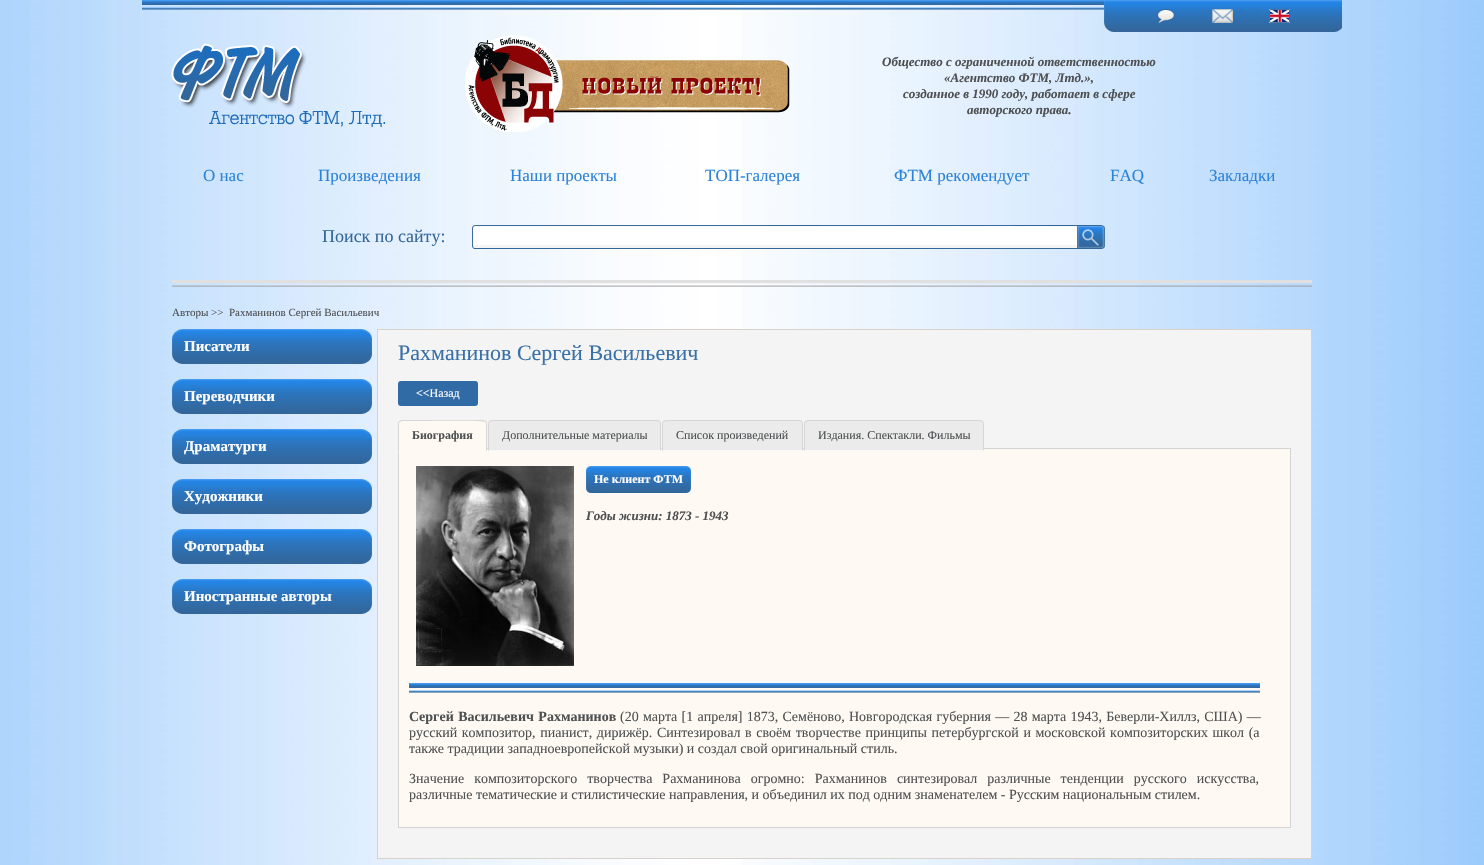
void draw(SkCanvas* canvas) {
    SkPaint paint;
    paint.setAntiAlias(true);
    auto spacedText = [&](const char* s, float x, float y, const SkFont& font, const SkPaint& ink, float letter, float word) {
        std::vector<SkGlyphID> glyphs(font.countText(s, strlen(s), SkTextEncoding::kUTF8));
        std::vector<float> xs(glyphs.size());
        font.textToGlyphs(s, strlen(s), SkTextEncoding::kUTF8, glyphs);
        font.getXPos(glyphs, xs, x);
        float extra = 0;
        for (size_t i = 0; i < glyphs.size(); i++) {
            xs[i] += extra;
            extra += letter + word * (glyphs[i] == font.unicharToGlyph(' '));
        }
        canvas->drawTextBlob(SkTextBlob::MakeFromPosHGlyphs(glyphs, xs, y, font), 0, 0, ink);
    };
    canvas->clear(0xFFFFFFFF);
    canvas->drawImageRect(SkImages::DeferredFromEncodedData(SkData::MakeFromFileName("img1.png")), SkRect::MakeXYWH(0, 0, 1484, 865), SkSamplingOptions());
    canvas->drawImageRect(SkImages::DeferredFromEncodedData(SkData::MakeFromFileName("img2.png")), SkRect::MakeXYWH(142, 0, 1200, 10), SkSamplingOptions());
    canvas->drawImageRect(SkImages::DeferredFromEncodedData(SkData::MakeFromFileName("img3.png")), SkRect::MakeXYWH(1104, 1, 238, 31), SkSamplingOptions());
    canvas->drawImageRect(SkImages::DeferredFromEncodedData(SkData::MakeFromFileName("img4.png")), SkRect::MakeXYWH(1157, 9, 18, 14), SkSamplingOptions());
    canvas->drawImageRect(SkImages::DeferredFromEncodedData(SkData::MakeFromFileName("img5.png")), SkRect::MakeXYWH(1212, 9, 21, 14), SkSamplingOptions());
    canvas->drawImageRect(SkImages::DeferredFromEncodedData(SkData::MakeFromFileName("img6.png")), SkRect::MakeXYWH(1269, 9, 21, 14), SkSamplingOptions());
    canvas->drawImageRect(SkImages::DeferredFromEncodedData(SkData::MakeFromFileName("img7.png")), SkRect::MakeXYWH(171, 43, 214, 84), SkSamplingOptions());
    canvas->drawImageRect(SkImages::DeferredFromEncodedData(SkData::MakeFromFileName("img8.png")), SkRect::MakeXYWH(465, 35, 325, 97), SkSamplingOptions());
    SkFont font1(fontMgr->matchFamilyStyle("Liberation Serif", SkFontStyle::BoldItalic()), 13);
    font1.setSubpixel(true);
    paint.setColor(0xFF4E5051);
    canvas->drawString("Общество с ограниченной ответственностью", 882, 66, font1, paint);
    canvas->drawString("«Агентство ФТМ, Лтд.»,", 944, 82, font1, paint);
    canvas->drawString("созданное в 1990 году, работает в сфере", 903, 98, font1, paint);
    canvas->drawString("авторского права.", 967, 114, font1, paint);
    SkFont font2(fontMgr->matchFamilyStyle("Liberation Serif", SkFontStyle::Normal()), 17);
    font2.setSubpixel(true);
    paint.setColor(0xFF2B82D9);
    canvas->drawString("О нас", 203, 181, font2, paint);
    canvas->drawString("Произведения", 318, 181, font2, paint);
    canvas->drawString("Наши проекты", 510, 181, font2, paint);
    canvas->drawString("ТОП-галерея", 705, 181, font2, paint);
    canvas->drawString("ФТМ рекомендует", 894, 181, font2, paint);
    canvas->drawString("FAQ", 1110, 181, font2, paint);
    canvas->drawString("Закладки", 1209, 181, font2, paint);
    SkFont font3(fontMgr->matchFamilyStyle("Liberation Serif", SkFontStyle::Normal()), 18);
    font3.setSubpixel(true);
    paint.setColor(0xFF336699);
    canvas->drawString("Поиск по сайту:", 322, 242, font3, paint);
    canvas->drawImageRect(SkImages::DeferredFromEncodedData(SkData::MakeFromFileName("img9.png")), SkRect::MakeXYWH(472, 225, 605, 24), SkSamplingOptions());
    paint.setColor(0xFFFFFFFF);
    canvas->drawRect(SkRect::MakeXYWH(473, 228, 604, 17), paint);
    canvas->drawImageRect(SkImages::DeferredFromEncodedData(SkData::MakeFromFileName("img10.png")), SkRect::MakeXYWH(1077, 225, 28, 24), SkSamplingOptions());
    canvas->drawImageRect(SkImages::DeferredFromEncodedData(SkData::MakeFromFileName("img11.png")), SkRect::MakeXYWH(172, 280, 1140, 7), SkSamplingOptions());
    SkFont font4(fontMgr->matchFamilyStyle("Liberation Serif", SkFontStyle::Normal()), 11);
    font4.setSubpixel(true);
    paint.setColor(0xFF4E5051);
    canvas->drawString("Авторы >>", 172, 316, font4, paint);
    canvas->drawString("Рахманинов Сергей Васильевич", 229, 316, font4, paint);
    canvas->drawImageRect(SkImages::DeferredFromEncodedData(SkData::MakeFromFileName("img12.png")), SkRect::MakeXYWH(172, 329, 12, 35), SkSamplingOptions());
    canvas->drawImageRect(SkImages::DeferredFromEncodedData(SkData::MakeFromFileName("img13.png")), SkRect::MakeXYWH(184, 329, 176, 35), SkSamplingOptions());
    SkFont font5(fontMgr->matchFamilyStyle("Liberation Serif", SkFontStyle::Bold()), 15);
    font5.setSubpixel(true);
    paint.setColor(0xFFFFFFFF);
    canvas->drawString("Писатели", 184, 351, font5, paint);
    canvas->drawImageRect(SkImages::DeferredFromEncodedData(SkData::MakeFromFileName("img14.png")), SkRect::MakeXYWH(360, 329, 12, 35), SkSamplingOptions());
    canvas->drawImageRect(SkImages::DeferredFromEncodedData(SkData::MakeFromFileName("img15.png")), SkRect::MakeXYWH(172, 379, 12, 35), SkSamplingOptions());
    canvas->drawImageRect(SkImages::DeferredFromEncodedData(SkData::MakeFromFileName("img13.png")), SkRect::MakeXYWH(184, 379, 176, 35), SkSamplingOptions());
    canvas->drawString("Переводчики", 184, 401, font5, paint);
    canvas->drawImageRect(SkImages::DeferredFromEncodedData(SkData::MakeFromFileName("img16.png")), SkRect::MakeXYWH(360, 379, 12, 35), SkSamplingOptions());
    canvas->drawImageRect(SkImages::DeferredFromEncodedData(SkData::MakeFromFileName("img17.png")), SkRect::MakeXYWH(172, 429, 12, 35), SkSamplingOptions());
    canvas->drawImageRect(SkImages::DeferredFromEncodedData(SkData::MakeFromFileName("img13.png")), SkRect::MakeXYWH(184, 429, 176, 35), SkSamplingOptions());
    canvas->drawString("Драматурги", 184, 451, font5, paint);
    canvas->drawImageRect(SkImages::DeferredFromEncodedData(SkData::MakeFromFileName("img18.png")), SkRect::MakeXYWH(360, 429, 12, 35), SkSamplingOptions());
    canvas->drawImageRect(SkImages::DeferredFromEncodedData(SkData::MakeFromFileName("img19.png")), SkRect::MakeXYWH(172, 479, 12, 35), SkSamplingOptions());
    canvas->drawImageRect(SkImages::DeferredFromEncodedData(SkData::MakeFromFileName("img13.png")), SkRect::MakeXYWH(184, 479, 176, 35), SkSamplingOptions());
    canvas->drawString("Художники", 184, 501, font5, paint);
    canvas->drawImageRect(SkImages::DeferredFromEncodedData(SkData::MakeFromFileName("img20.png")), SkRect::MakeXYWH(360, 479, 12, 35), SkSamplingOptions());
    canvas->drawImageRect(SkImages::DeferredFromEncodedData(SkData::MakeFromFileName("img21.png")), SkRect::MakeXYWH(172, 529, 12, 35), SkSamplingOptions());
    canvas->drawImageRect(SkImages::DeferredFromEncodedData(SkData::MakeFromFileName("img13.png")), SkRect::MakeXYWH(184, 529, 176, 35), SkSamplingOptions());
    canvas->drawString("Фотографы", 184, 551, font5, paint);
    canvas->drawImageRect(SkImages::DeferredFromEncodedData(SkData::MakeFromFileName("img22.png")), SkRect::MakeXYWH(360, 529, 12, 35), SkSamplingOptions());
    canvas->drawImageRect(SkImages::DeferredFromEncodedData(SkData::MakeFromFileName("img23.png")), SkRect::MakeXYWH(172, 579, 12, 35), SkSamplingOptions());
    canvas->drawImageRect(SkImages::DeferredFromEncodedData(SkData::MakeFromFileName("img13.png")), SkRect::MakeXYWH(184, 579, 176, 35), SkSamplingOptions());
    canvas->drawString("Иностранные авторы", 184, 601, font5, paint);
    canvas->drawImageRect(SkImages::DeferredFromEncodedData(SkData::MakeFromFileName("img24.png")), SkRect::MakeXYWH(360, 579, 12, 35), SkSamplingOptions());
    paint.setColor(0xFFF4F4F4);
    canvas->drawRect(SkRect::MakeXYWH(377.5f, 329.5f, 934, 529), paint);
    paint.setStyle(SkPaint::kStroke_Style);
    paint.setStrokeWidth(1);
    paint.setColor(0xFFD9D2CA);
    canvas->drawRect(SkRect::MakeXYWH(377.5f, 329.5f, 934, 529), paint);
    SkFont font6(fontMgr->matchFamilyStyle("Liberation Serif", SkFontStyle::Normal()), 22);
    font6.setSubpixel(true);
    paint.setStyle(SkPaint::kFill_Style);
    paint.setColor(0xFF3970A7);
    canvas->drawString("Рахманинов Сергей Васильевич", 398, 360, font6, paint);
    paint.setColor(0xFF316BA5);
    canvas->drawRoundRect(SkRect::MakeXYWH(398, 381, 80, 25), 3, 3, paint);
    SkFont font7(fontMgr->matchFamilyStyle("Liberation Serif", SkFontStyle::Normal()), 12);
    font7.setSubpixel(true);
    paint.setColor(0xFFFFFFFF);
    canvas->drawString("<<Назад", 416, 397, font7, paint);
    paint.setColor(0xFFFEF9F3);
    canvas->drawRect(SkRect::MakeXYWH(399, 449, 891, 378), paint);
    paint.setColor(0xFFD4D4D4);
    canvas->drawRect(SkRect::MakeXYWH(487, 448, 804, 1), paint);
    canvas->drawRect(SkRect::MakeXYWH(1290, 449, 1, 379), paint);
    canvas->drawRect(SkRect::MakeXYWH(398, 827, 893, 1), paint);
    canvas->drawRect(SkRect::MakeXYWH(398, 449, 1, 379), paint);
    paint.setColor(0xFFFEF9F3);
    canvas->drawPath(SkPathBuilder().moveTo(402, 420).lineTo(483, 420).cubicTo(485, 420, 487, 422, 487, 424).lineTo(487, 452).lineTo(398, 452).lineTo(398, 424).cubicTo(398, 422, 400, 420, 402, 420).close().detach(), paint);
    paint.setColor(0xFFD6D6D6);
    canvas->drawPath(SkPathBuilder().moveTo(402, 420).lineTo(399, 421).lineTo(400, 422).lineTo(402, 421).lineTo(416, 421).cubicTo(423, 421, 483, 420, 485, 422).lineTo(486, 421).lineTo(483, 420).close().detach(), paint);
    canvas->drawPath(SkPathBuilder().moveTo(487, 452).lineTo(487, 424).cubicTo(487, 423, 486.5f, 422, 486, 421).lineTo(485, 422).cubicTo(486, 422, 486, 423, 486, 424).lineTo(486, 451).close().detach(), paint);
    paint.setColor(0xFFFEF9F3);
    canvas->drawPath(SkPathBuilder().moveTo(487, 452).lineTo(486, 451).lineTo(399, 451).lineTo(398, 452).close().detach(), paint);
    paint.setColor(0xFFD6D6D6);
    canvas->drawPath(SkPathBuilder().moveTo(398, 452).lineTo(399, 451).lineTo(399, 424).cubicTo(399, 423, 399, 422, 400, 422).lineTo(399, 421).cubicTo(398.5f, 422, 398, 423, 398, 424).close().detach(), paint);
    SkFont font8(fontMgr->matchFamilyStyle("Liberation Serif", SkFontStyle::Bold()), 12);
    font8.setSubpixel(true);
    paint.setColor(0xFF4E5051);
    canvas->drawString("Биография", 412, 439, font8, paint);
    paint.setColor(0xFFEBEBEB);
    canvas->drawPath(SkPathBuilder().moveTo(492, 420).lineTo(657, 420).cubicTo(659, 420, 661, 422, 661, 424).lineTo(661, 451).lineTo(488, 451).lineTo(488, 424).cubicTo(488, 422, 490, 420, 492, 420).close().detach(), paint);
    paint.setColor(0xFFD6D6D6);
    canvas->drawPath(SkPathBuilder().moveTo(492, 420).lineTo(489, 421).lineTo(490, 422).lineTo(492, 421).lineTo(657, 421).lineTo(659, 422).lineTo(660, 421).lineTo(657, 420).close().detach(), paint);
    canvas->drawPath(SkPathBuilder().moveTo(661, 451).lineTo(661, 424).cubicTo(661, 423, 660.5f, 422, 660, 421).lineTo(659, 422).cubicTo(660, 422, 660, 423, 660, 424).lineTo(660, 450).close().detach(), paint);
    paint.setColor(0xFFF9F9F9);
    canvas->drawPath(SkPathBuilder().moveTo(661, 451).lineTo(660, 450).lineTo(489, 450).lineTo(488, 451).close().detach(), paint);
    paint.setColor(0xFFD6D6D6);
    canvas->drawPath(SkPathBuilder().moveTo(488, 451).lineTo(489, 450).lineTo(489, 424).cubicTo(489, 423, 489, 422, 490, 422).lineTo(489, 421).cubicTo(488.5f, 422, 488, 423, 488, 424).close().detach(), paint);
    paint.setColor(0xFF4E5051);
    canvas->drawString("Дополнительные материалы", 502, 439, font7, paint);
    paint.setColor(0xFFEBEBEB);
    canvas->drawPath(SkPathBuilder().moveTo(666, 420).lineTo(799, 420).cubicTo(801, 420, 803, 422, 803, 424).lineTo(803, 451).lineTo(662, 451).lineTo(662, 424).cubicTo(662, 422, 664, 420, 666, 420).close().detach(), paint);
    paint.setColor(0xFFD6D6D6);
    canvas->drawPath(SkPathBuilder().moveTo(666, 420).lineTo(663, 421).lineTo(664, 422).lineTo(666, 421).lineTo(799, 421).lineTo(801, 422).lineTo(802, 421).lineTo(799, 420).close().detach(), paint);
    canvas->drawPath(SkPathBuilder().moveTo(803, 451).lineTo(803, 424).cubicTo(803, 423, 802.5f, 422, 802, 421).lineTo(801, 422).cubicTo(802, 422, 802, 423, 802, 424).lineTo(802, 450).close().detach(), paint);
    paint.setColor(0xFFF9F9F9);
    canvas->drawPath(SkPathBuilder().moveTo(803, 451).lineTo(802, 450).lineTo(663, 450).lineTo(662, 451).close().detach(), paint);
    paint.setColor(0xFFD6D6D6);
    canvas->drawPath(SkPathBuilder().moveTo(662, 451).lineTo(663, 450).lineTo(663, 424).cubicTo(663, 423, 663, 422, 664, 422).lineTo(663, 421).cubicTo(662.5f, 422, 662, 423, 662, 424).close().detach(), paint);
    paint.setColor(0xFF4E5051);
    canvas->drawString("Список произведений", 676, 439, font7, paint);
    paint.setColor(0xFFEBEBEB);
    canvas->drawPath(SkPathBuilder().moveTo(808, 420).lineTo(980, 420).cubicTo(982, 420, 984, 422, 984, 424).lineTo(984, 451).lineTo(804, 451).lineTo(804, 424).cubicTo(804, 422, 806, 420, 808, 420).close().detach(), paint);
    paint.setColor(0xFFD6D6D6);
    canvas->drawPath(SkPathBuilder().moveTo(808, 420).lineTo(805, 421).lineTo(806, 422).lineTo(808, 421).lineTo(980, 421).lineTo(982, 422).lineTo(983, 421).lineTo(980, 420).close().detach(), paint);
    canvas->drawPath(SkPathBuilder().moveTo(984, 451).lineTo(984, 424).cubicTo(984, 423, 983.5f, 422, 983, 421).lineTo(982, 422).cubicTo(983, 422, 983, 423, 983, 424).lineTo(983, 450).close().detach(), paint);
    paint.setColor(0xFFF9F9F9);
    canvas->drawPath(SkPathBuilder().moveTo(984, 451).lineTo(983, 450).lineTo(805, 450).lineTo(804, 451).close().detach(), paint);
    paint.setColor(0xFFD6D6D6);
    canvas->drawPath(SkPathBuilder().moveTo(804, 451).lineTo(805, 450).lineTo(805, 424).cubicTo(805, 423, 805, 422, 806, 422).lineTo(805, 421).cubicTo(804.5f, 422, 804, 423, 804, 424).close().detach(), paint);
    paint.setColor(0xFF4E5051);
    canvas->drawString("Издания. Спектакли. Фильмы", 818, 439, font7, paint);
    canvas->drawImageRect(SkImages::DeferredFromEncodedData(SkData::MakeFromFileName("img25.png")), SkRect::MakeXYWH(416, 466, 158, 200), SkSamplingOptions());
    canvas->drawImageRect(SkImages::DeferredFromEncodedData(SkData::MakeFromFileName("img26.png")), SkRect::MakeXYWH(586, 466, 8, 27), SkSamplingOptions());
    canvas->drawImageRect(SkImages::DeferredFromEncodedData(SkData::MakeFromFileName("img27.png")), SkRect::MakeXYWH(594, 466, 89, 27), SkSamplingOptions());
    paint.setColor(0xFFFFFFFF);
    canvas->drawString("Не клиент ФТМ", 594, 483, font8, paint);
    canvas->drawImageRect(SkImages::DeferredFromEncodedData(SkData::MakeFromFileName("img28.png")), SkRect::MakeXYWH(683, 466, 8, 27), SkSamplingOptions());
    paint.setColor(0xFF4E5051);
    canvas->drawString("Годы жизни: 1873 - 1943", 586, 520, font1, paint);
    canvas->drawImageRect(SkImages::DeferredFromEncodedData(SkData::MakeFromFileName("img29.png")), SkRect::MakeXYWH(409, 683, 851, 10), SkSamplingOptions());
    SkFont font9(fontMgr->matchFamilyStyle("Liberation Serif", SkFontStyle::Bold()), 14);
    font9.setSubpixel(true);
    spacedText("Сергей Васильевич Рахманинов", 409, 721, font9, paint, 0, 1);
    SkFont font10(fontMgr->matchFamilyStyle("Liberation Serif", SkFontStyle::Normal()), 14);
    font10.setSubpixel(true);
    spacedText("(20 марта [1 апреля] 1873, Семёново, Новгородская губерния — 28 марта 1943, Беверли-Хиллз, США) —", 620, 721, font10, paint, 0, 0.75f);
    spacedText("русский композитор, пианист, дирижёр. Синтезировал в своём творчестве принципы петербургской и московской композиторских школ (а", 409, 737, font10, paint, 0, 1.1f);
    canvas->drawString("также традиции западноевропейской музыки) и создал свой оригинальный стиль.", 409, 753, font10, paint);
    spacedText("Значение композиторского творчества Рахманинова огромно: Рахманинов синтезировал различные тенденции русского искусства,", 409, 783, font10, paint, 0, 6.5f);
    canvas->drawString("различные тематические и стилистические направления, и объединил их под одним знаменателем - Русским национальным стилем.", 409, 799, font10, paint);
}
